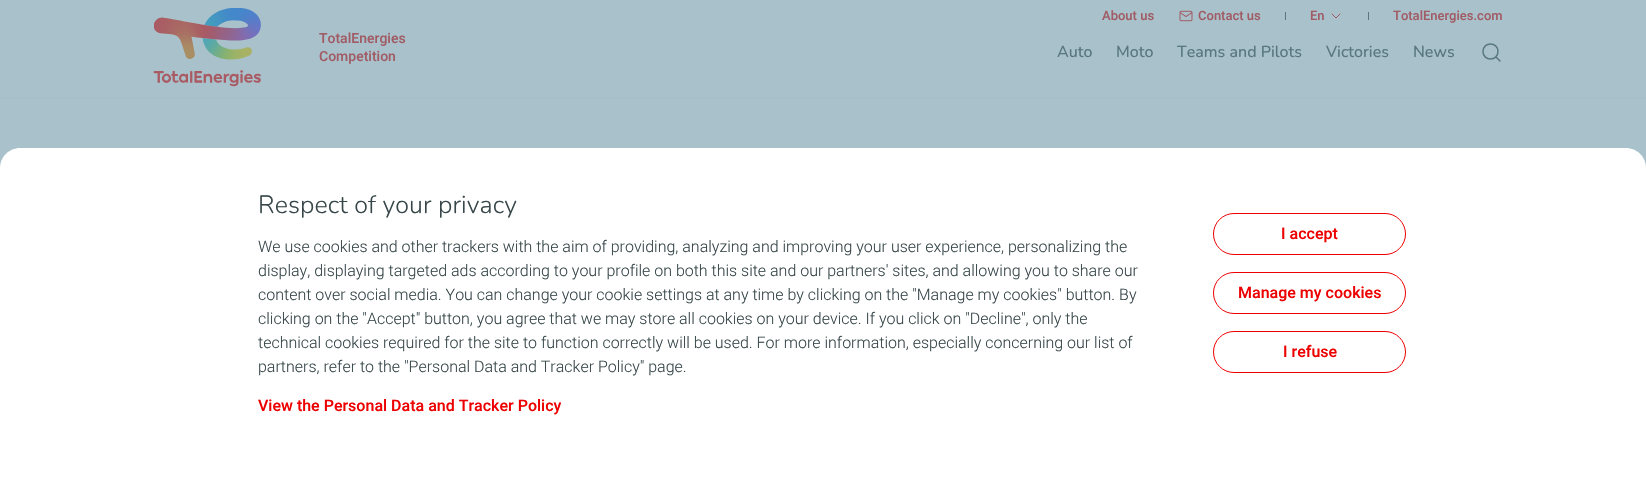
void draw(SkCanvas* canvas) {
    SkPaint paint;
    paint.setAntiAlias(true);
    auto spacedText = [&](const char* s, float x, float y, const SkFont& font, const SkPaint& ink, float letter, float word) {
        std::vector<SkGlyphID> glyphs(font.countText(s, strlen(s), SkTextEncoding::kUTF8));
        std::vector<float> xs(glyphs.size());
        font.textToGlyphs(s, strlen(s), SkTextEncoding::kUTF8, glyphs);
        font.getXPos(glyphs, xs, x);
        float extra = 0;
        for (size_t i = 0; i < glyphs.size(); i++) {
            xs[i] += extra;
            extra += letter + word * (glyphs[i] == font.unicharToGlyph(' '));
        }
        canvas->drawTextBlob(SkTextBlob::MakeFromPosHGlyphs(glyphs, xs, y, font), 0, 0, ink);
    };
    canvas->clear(0xFFA9C1CA);
    paint.setColor(0xFFA5BFC9);
    canvas->drawRect(SkRect::MakeXYWH(0, 98, 1646, 1), paint);
    canvas->drawImageRect(SkImages::DeferredFromEncodedData(SkData::MakeFromFileName("img1.png")), SkRect::MakeXYWH(153, 8, 108, 79), SkSamplingOptions());
    SkFont font1(fontMgr->matchFamilyStyle("Roboto", SkFontStyle(500, SkFontStyle::kNormal_Width, SkFontStyle::kUpright_Slant)), 14);
    font1.setSubpixel(true);
    paint.setColor(0xFFA05B64);
    canvas->drawString("TotalEnergies", 319, 43, font1, paint);
    canvas->drawString("Competition", 319, 61, font1, paint);
    SkFont font2(fontMgr->matchFamilyStyle("Roboto", SkFontStyle(500, SkFontStyle::kNormal_Width, SkFontStyle::kUpright_Slant)), 13);
    font2.setSubpixel(true);
    canvas->drawString("About us", 1102, 20, font2, paint);
    canvas->drawImageRect(SkImages::DeferredFromEncodedData(SkData::MakeFromFileName("img2.png")), SkRect::MakeXYWH(1179, 10, 14, 12), SkSamplingOptions());
    canvas->drawString("Contact us", 1198, 20, font2, paint);
    paint.setColor(0xFF597781);
    canvas->drawRect(SkRect::MakeXYWH(1285, 12, 1, 8), paint);
    paint.setColor(0xFFA05B64);
    canvas->drawString("En", 1310, 20, font2, paint);
    paint.setStyle(SkPaint::kStroke_Style);
    paint.setStrokeWidth(1);
    paint.setStrokeCap(SkPaint::kRound_Cap);
    paint.setStrokeJoin(SkPaint::kRound_Join);
    canvas->drawPath(SkPathBuilder().moveTo(1332, 14).lineTo(1336, 18).lineTo(1340, 14).detach(), paint);
    paint.setStyle(SkPaint::kFill_Style);
    paint.setColor(0xFF597781);
    canvas->drawRect(SkRect::MakeXYWH(1368, 12, 1, 8), paint);
    paint.setColor(0xFFA05B64);
    canvas->drawString("TotalEnergies.com", 1393, 20, font2, paint);
    SkFont font3(fontMgr->matchFamilyStyle("Nunito", SkFontStyle(500, SkFontStyle::kNormal_Width, SkFontStyle::kUpright_Slant)), 16);
    font3.setSubpixel(true);
    paint.setColor(0xFF597781);
    canvas->drawString("Auto", 1057, 57, font3, paint);
    canvas->drawString("Moto", 1116, 57, font3, paint);
    canvas->drawString("Teams and Pilots", 1177, 57, font3, paint);
    canvas->drawString("Victories", 1326, 57, font3, paint);
    canvas->drawString("News", 1413, 57, font3, paint);
    paint.setStyle(SkPaint::kStroke_Style);
    paint.setStrokeWidth(1.5f);
    canvas->drawPath(SkPathBuilder().moveTo(1500, 61).lineTo(1496, 57).moveTo(1498, 51.5f).cubicTo(1498, 61.5f, 1483, 61.5f, 1483, 51.5f).cubicTo(1483, 41.5f, 1498, 41.5f, 1498, 51.5f).close().detach(), paint);
    paint.setStyle(SkPaint::kFill_Style);
    paint.setColor(0xFFFFFFFF);
    canvas->drawPath(SkPathBuilder().moveTo(20, 148).lineTo(1626, 148).cubicTo(1637, 148, 1646, 157, 1646, 168).lineTo(1646, 482).lineTo(0, 482).lineTo(0, 168).cubicTo(0, 157, 9, 148, 20, 148).close().detach(), paint);
    SkFont font4(fontMgr->matchFamilyStyle("Nunito", SkFontStyle(300, SkFontStyle::kNormal_Width, SkFontStyle::kUpright_Slant)), 25);
    font4.setSubpixel(true);
    paint.setColor(0xFF374649);
    spacedText("Respect of your privacy", 258, 213, font4, paint, 0.1f, 0);
    SkFont font5(fontMgr->matchFamilyStyle("Roboto", SkFontStyle(300, SkFontStyle::kNormal_Width, SkFontStyle::kUpright_Slant)), 16);
    font5.setSubpixel(true);
    canvas->drawString("We use cookies and other trackers with the aim of providing, analyzing and improving your user experience, personalizing the", 258, 252, font5, paint);
    canvas->drawString("display, displaying targeted ads according to your profile on both this site and our partners' sites, and allowing you to share our", 258, 276, font5, paint);
    canvas->drawString("content over social media. You can change your cookie settings at any time by clicking on the \"Manage my cookies\" button. By", 258, 300, font5, paint);
    canvas->drawString("clicking on the \"Accept\" button, you agree that we may store all cookies on your device. If you click on \"Decline\", only the", 258, 324, font5, paint);
    canvas->drawString("technical cookies required for the site to function correctly will be used. For more information, especially concerning our list of", 258, 348, font5, paint);
    canvas->drawString("partners, refer to the \"Personal Data and Tracker Policy\" page.", 258, 372, font5, paint);
    paint.setStyle(SkPaint::kStroke_Style);
    paint.setStrokeWidth(1);
    paint.setStrokeCap(SkPaint::kButt_Cap);
    paint.setStrokeJoin(SkPaint::kMiter_Join);
    paint.setColor(0xFFED0000);
    canvas->drawRoundRect(SkRect::MakeXYWH(1213.5f, 213.5f, 192, 41), 20.5f, 20.5f, paint);
    SkFont font6(fontMgr->matchFamilyStyle("Roboto", SkFontStyle(500, SkFontStyle::kNormal_Width, SkFontStyle::kUpright_Slant)), 16);
    font6.setSubpixel(true);
    paint.setStyle(SkPaint::kFill_Style);
    canvas->drawString("I accept", 1281, 239, font6, paint);
    paint.setStyle(SkPaint::kStroke_Style);
    canvas->drawRoundRect(SkRect::MakeXYWH(1213.5f, 272.5f, 192, 41), 20.5f, 20.5f, paint);
    paint.setStyle(SkPaint::kFill_Style);
    canvas->drawString("Manage my cookies", 1238, 298, font6, paint);
    paint.setStyle(SkPaint::kStroke_Style);
    canvas->drawRoundRect(SkRect::MakeXYWH(1213.5f, 331.5f, 192, 41), 20.5f, 20.5f, paint);
    paint.setStyle(SkPaint::kFill_Style);
    canvas->drawString("I refuse", 1283, 357, font6, paint);
    canvas->drawString("View the Personal Data and Tracker Policy", 258, 411, font6, paint);
}
